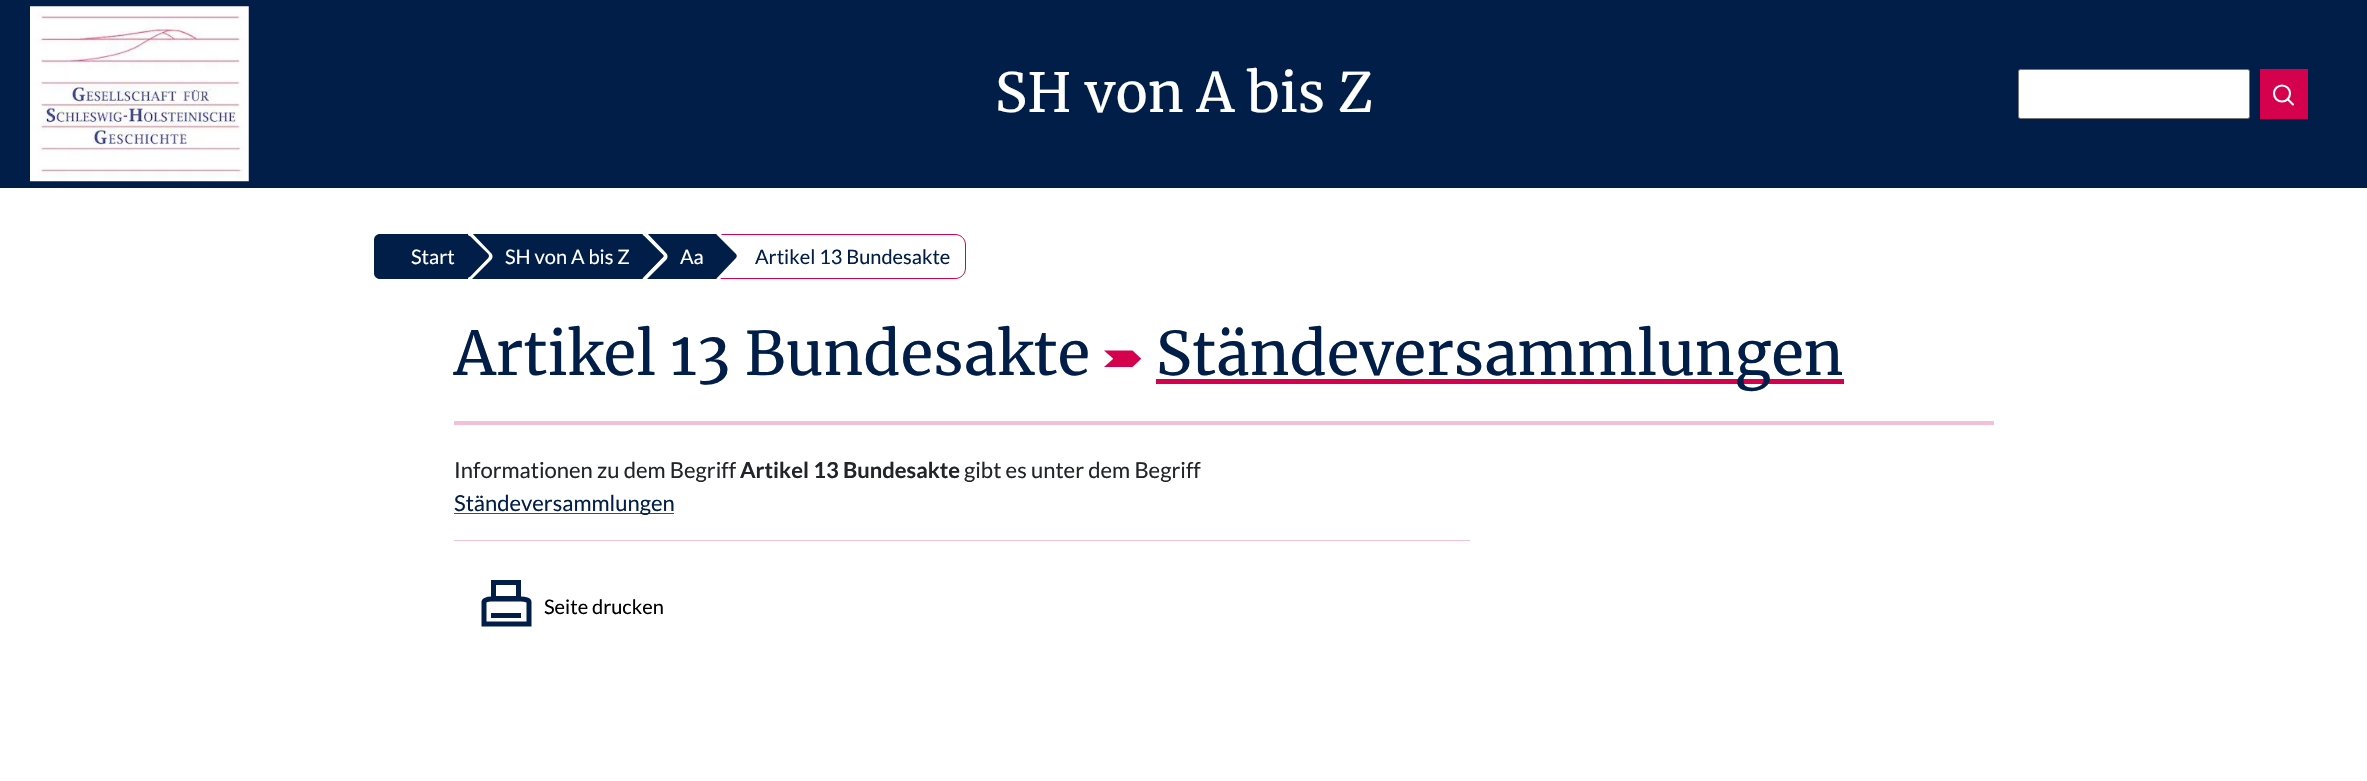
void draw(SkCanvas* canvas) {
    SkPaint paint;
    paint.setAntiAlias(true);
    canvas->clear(0xFFFFFFFF);
    paint.setColor(0xFF011E48);
    canvas->drawRect(SkRect::MakeXYWH(0, 0, 2367, 188), paint);
    canvas->drawImageRect(SkImages::DeferredFromEncodedData(SkData::MakeFromFileName("img1.png")), SkRect::MakeXYWH(30, 6, 219, 176), SkSamplingOptions());
    SkFont font1(fontMgr->matchFamilyStyle("Merriweather", SkFontStyle::Normal()), 54);
    font1.setSubpixel(true);
    paint.setColor(0xFFFFFFFF);
    canvas->drawString("SH von A bis Z", 995, 112, font1, paint);
    canvas->drawRoundRect(SkRect::MakeXYWH(2018.5f, 69.5f, 231, 49), 2, 2, paint);
    paint.setStyle(SkPaint::kStroke_Style);
    paint.setStrokeWidth(1);
    paint.setColor(0xFF767676);
    canvas->drawRoundRect(SkRect::MakeXYWH(2018.5f, 69.5f, 231, 49), 2, 2, paint);
    paint.setStyle(SkPaint::kFill_Style);
    paint.setColor(0xFFD6014C);
    canvas->drawRect(SkRect::MakeXYWH(2260, 69, 48, 50), paint);
    paint.setStyle(SkPaint::kStroke_Style);
    paint.setStrokeWidth(2.1f);
    paint.setColor(0xFFFFFFFF);
    canvas->drawCircle(2282, 93.5f, 8, paint);
    paint.setStrokeCap(SkPaint::kRound_Cap);
    paint.setStrokeJoin(SkPaint::kRound_Join);
    canvas->drawPath(SkPathBuilder().moveTo(2293, 104.5f).lineTo(2287.5f, 99).detach(), paint);
    paint.setStyle(SkPaint::kFill_Style);
    paint.setColor(0xFF011E48);
    canvas->drawPath(SkPathBuilder().moveTo(380, 234).lineTo(468, 234).lineTo(468, 279).lineTo(380, 279).cubicTo(376.5f, 279, 374, 276.5f, 374, 273).lineTo(374, 240).cubicTo(374, 236.5f, 376.5f, 234, 380, 234).close().detach(), paint);
    SkFont font2(fontMgr->matchFamilyStyle("Lato", SkFontStyle::Normal()), 20);
    font2.setSubpixel(true);
    paint.setColor(0xFFFFFFFF);
    canvas->drawString("Start", 411, 264, font2, paint);
    paint.setColor(0xFF011E48);
    canvas->drawPath(SkPathBuilder().moveTo(474, 234).lineTo(643, 234).lineTo(643, 279).lineTo(474, 279).cubicTo(470.5f, 279, 468, 276.5f, 468, 273).lineTo(468, 240).cubicTo(468, 236.5f, 470.5f, 234, 474, 234).close().detach(), paint);
    canvas->save();
    canvas->clipRect(SkRect::MakeXYWH(374, 230, 1620, 49));
    paint.setColor(0xFFFFFFFF);
    canvas->drawPath(SkPathBuilder().moveTo(470, 231).lineTo(468, 234).lineTo(488, 254).cubicTo(489, 255, 489, 257, 488, 258).lineTo(468, 279).lineTo(470, 281).lineTo(491, 260).cubicTo(493, 258, 493, 255, 491, 253).close().detach(), paint);
    canvas->restore();
    paint.setColor(0xFF011E48);
    canvas->drawPath(SkPathBuilder().moveTo(467, 234).lineTo(488, 254).cubicTo(489, 255, 489, 257, 488, 258).lineTo(467, 279).cubicTo(455, 266, 455, 246, 467, 234).close().detach(), paint);
    paint.setColor(0xFFFFFFFF);
    canvas->drawString("SH von A bis Z", 505, 264, font2, paint);
    paint.setColor(0xFF011E48);
    canvas->drawPath(SkPathBuilder().moveTo(649, 234).lineTo(716, 234).lineTo(716, 279).lineTo(649, 279).cubicTo(645.5f, 279, 643, 276.5f, 643, 273).lineTo(643, 240).cubicTo(643, 236.5f, 645.5f, 234, 649, 234).close().detach(), paint);
    canvas->save();
    canvas->clipRect(SkRect::MakeXYWH(374, 230, 1620, 49));
    paint.setColor(0xFFFFFFFF);
    canvas->drawPath(SkPathBuilder().moveTo(645, 231).lineTo(642, 234).lineTo(662, 254).cubicTo(664, 255, 664, 257, 662, 258).lineTo(642, 278).lineTo(645, 281).lineTo(666, 260).cubicTo(668, 258, 668, 255, 666, 253).close().detach(), paint);
    canvas->restore();
    paint.setColor(0xFF011E48);
    canvas->drawPath(SkPathBuilder().moveTo(642, 234).lineTo(662, 254).cubicTo(664, 255, 664, 257, 662, 258).lineTo(642, 279).cubicTo(630, 266, 630, 246, 642, 234).close().detach(), paint);
    paint.setColor(0xFFFFFFFF);
    canvas->drawString("Aa", 680, 264, font2, paint);
    paint.setStyle(SkPaint::kStroke_Style);
    paint.setStrokeWidth(1);
    paint.setStrokeCap(SkPaint::kButt_Cap);
    paint.setStrokeJoin(SkPaint::kMiter_Join);
    paint.setColor(0xFFD6014C);
    canvas->drawPath(SkPathBuilder().moveTo(716.5f, 234.5f).lineTo(955, 234.5f).cubicTo(961, 234.5f, 965.5f, 239, 965.5f, 245).lineTo(965.5f, 268).cubicTo(965.5f, 274, 961, 278.5f, 955, 278.5f).lineTo(716.5f, 278.5f).close().detach(), paint);
    canvas->save();
    canvas->clipRect(SkRect::MakeXYWH(374, 230, 1620, 49));
    paint.setStyle(SkPaint::kFill_Style);
    paint.setColor(0xFFFFFFFF);
    canvas->drawPath(SkPathBuilder().moveTo(718, 231).lineTo(716, 234).lineTo(736, 254).cubicTo(737, 255, 737, 257, 736, 258).lineTo(716, 279).lineTo(718, 281).lineTo(740, 260).cubicTo(742, 258, 742, 255, 740, 253).close().detach(), paint);
    canvas->restore();
    paint.setColor(0xFF011E48);
    canvas->drawPath(SkPathBuilder().moveTo(716, 234).lineTo(736, 254).cubicTo(737, 255, 737, 257, 736, 258).lineTo(716, 279).cubicTo(704, 266, 704, 246, 716, 234).close().detach(), paint);
    canvas->drawString("Artikel 13 Bundesakte", 755, 264, font2, paint);
    SkFont font3(fontMgr->matchFamilyStyle("Merriweather", SkFontStyle::Normal()), 60);
    font3.setSubpixel(true);
    canvas->drawString("Artikel 13 Bundesakte", 454, 375, font3, paint);
    paint.setColor(0xFFD6014C);
    canvas->drawPath(SkPathBuilder().moveTo(1132.5f, 367).lineTo(1104, 367).lineTo(1113, 359).lineTo(1113, 358.5f).lineTo(1104, 350.5f).lineTo(1132.5f, 350.5f).lineTo(1141, 358.5f).lineTo(1141, 359).close().detach(), paint);
    canvas->drawRect(SkRect::MakeXYWH(1156, 379, 688, 5), paint);
    paint.setColor(0xFF011E48);
    canvas->drawString("Ständeversammlungen", 1156, 375, font3, paint);
    paint.setColor(0xFFF5C0D3);
    canvas->drawRect(SkRect::MakeXYWH(454, 421, 1540, 4), paint);
    SkFont font4(fontMgr->matchFamilyStyle("Lato", SkFontStyle::Normal()), 22);
    font4.setSubpixel(true);
    paint.setColor(0xFF212529);
    canvas->drawString("Informationen zu dem Begriff", 454, 478, font4, paint);
    SkFont font5(fontMgr->matchFamilyStyle("Lato", SkFontStyle::Bold()), 22);
    font5.setSubpixel(true);
    canvas->drawString("Artikel 13 Bundesakte", 740, 478, font5, paint);
    canvas->drawString("gibt es unter dem Begriff", 964, 478, font4, paint);
    paint.setColor(0xFFD6014C);
    canvas->drawRect(SkRect::MakeXYWH(454, 513, 220, 1), paint);
    paint.setColor(0xFF011E48);
    canvas->drawString("Ständeversammlungen", 454, 511, font4, paint);
    paint.setColor(0xFFF5C0D2);
    canvas->drawRect(SkRect::MakeXYWH(454, 540, 1016, 1), paint);
    paint.setStyle(SkPaint::kStroke_Style);
    paint.setStrokeWidth(5);
    paint.setColor(0xFF011E48);
    canvas->drawPath(SkPathBuilder().moveTo(491, 599).lineTo(521, 599).cubicTo(525.5f, 599, 529, 600.5f, 529, 602).lineTo(529, 624).lineTo(484, 624).lineTo(484, 602).cubicTo(484, 600.5f, 487, 599, 491, 599).close().detach(), paint);
    canvas->drawRect(SkRect::MakeXYWH(493.5f, 582.5f, 25, 16), paint);
    paint.setStyle(SkPaint::kFill_Style);
    canvas->drawRect(SkRect::MakeXYWH(491, 613, 30, 5), paint);
    paint.setColor(0xFF000000);
    canvas->drawString("Seite drucken", 544, 614, font2, paint);
}
